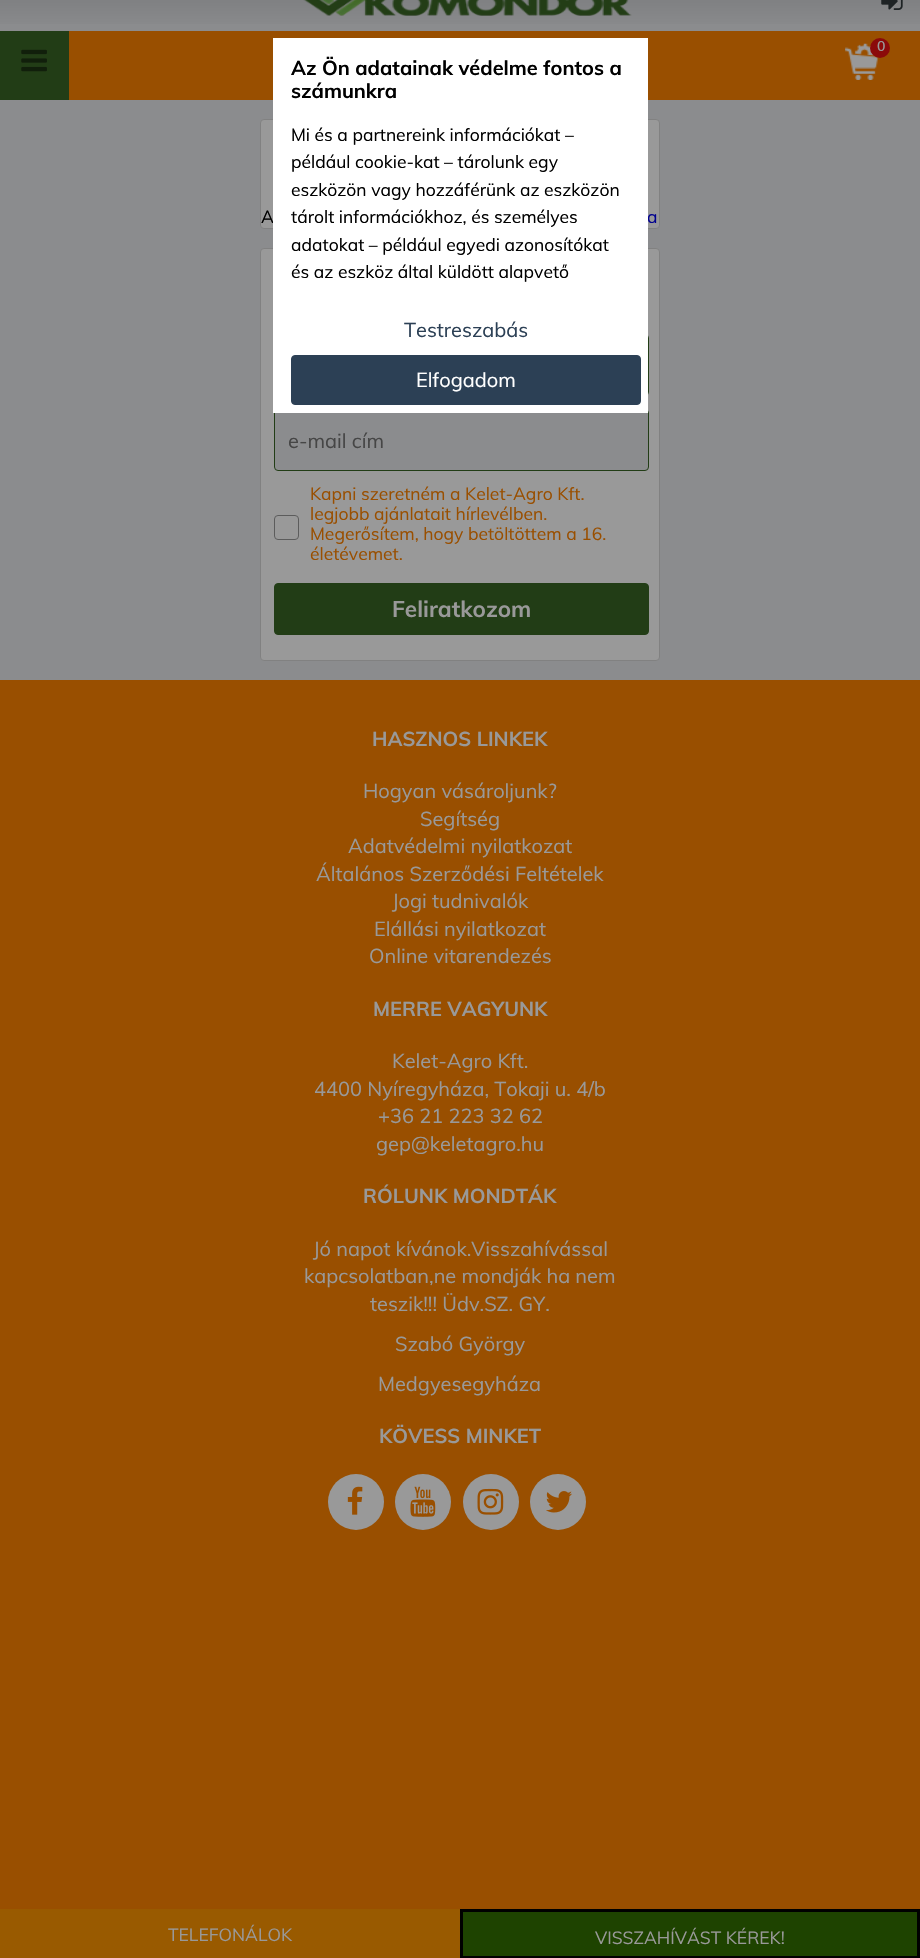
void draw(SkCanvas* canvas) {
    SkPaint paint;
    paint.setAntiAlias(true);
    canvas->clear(0xFF8B8C8E);
    {
        const SkColor colors[] = {0xFF767779, 0xFF8B8C8E};
        const float stops[] = {0, 1};
        const SkPoint ends[] = {{460, -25}, {460, 31}};
        paint.setShader(SkGradientShader::MakeLinear(ends, colors, stops, 2, SkTileMode::kClamp));
        paint.setAlpha(255);
    }
    canvas->drawRect(SkRect::MakeXYWH(0, 0, 920, 24), paint);
    canvas->drawImageRect(SkImages::DeferredFromEncodedData(SkData::MakeFromFileName("img1.png")), SkRect::MakeXYWH(303, 0, 329, 16), SkSamplingOptions());
    canvas->drawImageRect(SkImages::DeferredFromEncodedData(SkData::MakeFromFileName("img2.png")), SkRect::MakeXYWH(881, 0, 22, 10), SkSamplingOptions());
    paint.setShader(nullptr);
    paint.setColor(0xFF994F00);
    canvas->drawRect(SkRect::MakeXYWH(69, 31, 851, 69), paint);
    paint.setColor(0xFF223D16);
    canvas->drawRect(SkRect::MakeXYWH(0, 31, 69, 69), paint);
    canvas->drawImageRect(SkImages::DeferredFromEncodedData(SkData::MakeFromFileName("img3.png")), SkRect::MakeXYWH(21, 49, 26, 23), SkSamplingOptions());
    canvas->drawImageRect(SkImages::DeferredFromEncodedData(SkData::MakeFromFileName("img4.png")), SkRect::MakeXYWH(845, 43, 33, 37), SkSamplingOptions());
    paint.setColor(0xFF8B0A0A);
    canvas->drawCircle(880, 48, 10, paint);
    SkFont font1(fontMgr->matchFamilyStyle("Muli", SkFontStyle(600, SkFontStyle::kNormal_Width, SkFontStyle::kUpright_Slant)), 14);
    font1.setSubpixel(true);
    paint.setColor(0xFF999999);
    canvas->drawString("0", 877, 51, font1, paint);
    canvas->drawRoundRect(SkRect::MakeXYWH(260.5f, 119.5f, 399, 109), 3.5f, 3.5f, paint);
    paint.setStyle(SkPaint::kStroke_Style);
    paint.setStrokeWidth(1);
    paint.setColor(0xFF818181);
    canvas->drawRoundRect(SkRect::MakeXYWH(260.5f, 119.5f, 399, 109), 3.5f, 3.5f, paint);
    SkFont font2(fontMgr->matchFamilyStyle("Muli", SkFontStyle::Normal()), 17.5f);
    font2.setSubpixel(true);
    paint.setStyle(SkPaint::kFill_Style);
    paint.setColor(0xFF000000);
    canvas->drawString("A", 261, 223, font2, paint);
    paint.setColor(0xFF00008F);
    canvas->drawString("a", 647, 223, font2, paint);
    paint.setColor(0xFF999999);
    canvas->drawRoundRect(SkRect::MakeXYWH(260.5f, 248.5f, 399, 412), 3.5f, 3.5f, paint);
    paint.setStyle(SkPaint::kStroke_Style);
    paint.setColor(0xFF818181);
    canvas->drawRoundRect(SkRect::MakeXYWH(260.5f, 248.5f, 399, 412), 3.5f, 3.5f, paint);
    paint.setColor(0xFF223D16);
    canvas->drawRoundRect(SkRect::MakeXYWH(274.5f, 334.5f, 374, 61), 3.5f, 3.5f, paint);
    paint.setStyle(SkPaint::kFill_Style);
    paint.setColor(0xFF8B8C8E);
    canvas->drawRoundRect(SkRect::MakeXYWH(274.5f, 409.5f, 374, 61), 3.5f, 3.5f, paint);
    paint.setStyle(SkPaint::kStroke_Style);
    paint.setColor(0xFF223D16);
    canvas->drawRoundRect(SkRect::MakeXYWH(274.5f, 409.5f, 374, 61), 3.5f, 3.5f, paint);
    paint.setStyle(SkPaint::kFill_Style);
    paint.setColor(0xFFFFFFFF);
    canvas->drawRect(SkRect::MakeXYWH(273, 38, 375, 375), paint);
    SkFont font3(fontMgr->matchFamilyStyle("Muli", SkFontStyle::Bold()), 20);
    font3.setSubpixel(true);
    paint.setColor(0xFF000000);
    canvas->drawString("Az Ön adatainak védelme fontos a", 291, 75, font3, paint);
    canvas->drawString("számunkra", 291, 98, font3, paint);
    canvas->drawString("Mi és a partnereink információkat –", 291, 141, font2, paint);
    canvas->drawString("például cookie-kat – tárolunk egy", 291, 168, font2, paint);
    canvas->drawString("eszközön vagy hozzáférünk az eszközön", 291, 196, font2, paint);
    canvas->drawString("tárolt információkhoz, és személyes", 291, 223, font2, paint);
    canvas->drawString("adatokat – például egyedi azonosítókat", 291, 251, font2, paint);
    canvas->drawString("és az eszköz által küldött alapvető", 291, 278, font2, paint);
    SkFont font4(fontMgr->matchFamilyStyle("Muli", SkFontStyle::Normal()), 20);
    font4.setSubpixel(true);
    paint.setColor(0xFF2C4055);
    canvas->drawString("Testreszabás", 404, 337, font4, paint);
    canvas->drawRoundRect(SkRect::MakeXYWH(291.5f, 355.5f, 349, 49), 3.5f, 3.5f, paint);
    paint.setStyle(SkPaint::kStroke_Style);
    canvas->drawRoundRect(SkRect::MakeXYWH(291.5f, 355.5f, 349, 49), 3.5f, 3.5f, paint);
    paint.setStyle(SkPaint::kFill_Style);
    paint.setColor(0xFFFFFFFF);
    canvas->drawString("Elfogadom", 416, 387, font4, paint);
    paint.setColor(0xFF464646);
    canvas->drawString("e-mail cím", 288, 448, font4, paint);
    paint.setStyle(SkPaint::kStroke_Style);
    paint.setColor(0xFF5C5C5C);
    canvas->drawRoundRect(SkRect::MakeXYWH(274.5f, 515.5f, 24, 24), 3.5f, 3.5f, paint);
    paint.setStyle(SkPaint::kFill_Style);
    paint.setColor(0xFF994F00);
    canvas->drawString("Kapni szeretném a Kelet-Agro Kft.", 310, 500, font2, paint);
    canvas->drawString("legjobb ajánlatait hírlevélben.", 310, 520, font2, paint);
    canvas->drawString("Megerősítem, hogy betöltöttem a 16.", 310, 540, font2, paint);
    canvas->drawString("életévemet.", 310, 560, font2, paint);
    paint.setColor(0xFF223D16);
    canvas->drawRoundRect(SkRect::MakeXYWH(274.5f, 583.5f, 374, 51), 3.5f, 3.5f, paint);
    paint.setStyle(SkPaint::kStroke_Style);
    canvas->drawRoundRect(SkRect::MakeXYWH(274.5f, 583.5f, 374, 51), 3.5f, 3.5f, paint);
    SkFont font5(fontMgr->matchFamilyStyle("Muli", SkFontStyle::Bold()), 22.5f);
    font5.setSubpixel(true);
    paint.setStyle(SkPaint::kFill_Style);
    paint.setColor(0xFF999999);
    canvas->drawString("Feliratkozom", 392, 617, font5, paint);
    paint.setColor(0xFF994F00);
    canvas->drawRect(SkRect::MakeXYWH(0, 680, 920, 1229), paint);
    paint.setColor(0xFF999999);
    canvas->drawString("HASZNOS LINKEK", 372, 746, font3, paint);
    canvas->drawString("Hogyan vásároljunk?", 363, 798, font4, paint);
    canvas->drawString("Segítség", 420, 826, font4, paint);
    canvas->drawString("Adatvédelmi nyilatkozat", 348, 853, font4, paint);
    canvas->drawString("Általános Szerződési Feltételek", 316, 881, font4, paint);
    canvas->drawString("Jogi tudnivalók", 392, 908, font4, paint);
    canvas->drawString("Elállási nyilatkozat", 374, 936, font4, paint);
    canvas->drawString("Online vitarendezés", 369, 963, font4, paint);
    canvas->drawString("MERRE VAGYUNK", 373, 1016, font3, paint);
    canvas->drawString("Kelet-Agro Kft.", 392, 1068, font4, paint);
    canvas->drawString("4400 Nyíregyháza, Tokaji u. 4/b", 314, 1096, font4, paint);
    canvas->drawString("+36 21 223 32 62", 378, 1123, font4, paint);
    canvas->drawString("gep@keletagro.hu", 376, 1151, font4, paint);
    canvas->drawString("RÓLUNK MONDTÁK", 363, 1203, font3, paint);
    canvas->drawString("Jó napot kívánok.Visszahívással", 313, 1256, font4, paint);
    canvas->drawString("kapcsolatban,ne mondják ha nem", 304, 1283, font4, paint);
    canvas->drawString("teszik!!! Üdv.SZ. GY.", 370, 1311, font4, paint);
    canvas->drawString("Szabó György", 395, 1351, font4, paint);
    canvas->drawString("Medgyesegyháza", 378, 1391, font4, paint);
    canvas->drawString("KÖVESS MINKET", 379, 1443, font3, paint);
    canvas->drawCircle(356, 1502, 28, paint);
    canvas->drawImageRect(SkImages::DeferredFromEncodedData(SkData::MakeFromFileName("img5.png")), SkRect::MakeXYWH(347, 1486, 16, 29), SkSamplingOptions());
    canvas->drawCircle(423, 1502, 28, paint);
    canvas->drawImageRect(SkImages::DeferredFromEncodedData(SkData::MakeFromFileName("img6.png")), SkRect::MakeXYWH(410, 1486, 26, 31), SkSamplingOptions());
    canvas->drawCircle(491, 1502, 28, paint);
    canvas->drawImageRect(SkImages::DeferredFromEncodedData(SkData::MakeFromFileName("img7.png")), SkRect::MakeXYWH(477, 1488, 27, 27), SkSamplingOptions());
    canvas->drawCircle(558, 1502, 28, paint);
    canvas->drawImageRect(SkImages::DeferredFromEncodedData(SkData::MakeFromFileName("img8.png")), SkRect::MakeXYWH(546, 1491, 26, 22), SkSamplingOptions());
    paint.setColor(0xFF995A00);
    canvas->drawRect(SkRect::MakeXYWH(0, 1909, 460, 49), paint);
    paint.setColor(0xFF999999);
    canvas->drawString("TELEFONÁLOK", 168, 1941, font2, paint);
    paint.setColor(0xFF1E4300);
    canvas->drawRect(SkRect::MakeXYWH(461.5f, 1910.5f, 457, 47), paint);
    paint.setStyle(SkPaint::kStroke_Style);
    paint.setStrokeWidth(3);
    paint.setColor(0xFF000000);
    canvas->drawRect(SkRect::MakeXYWH(461.5f, 1910.5f, 457, 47), paint);
    paint.setStyle(SkPaint::kFill_Style);
    paint.setColor(0xFF999999);
    canvas->drawString("VISSZAHÍVÁST KÉREK!", 595, 1944, font2, paint);
}
